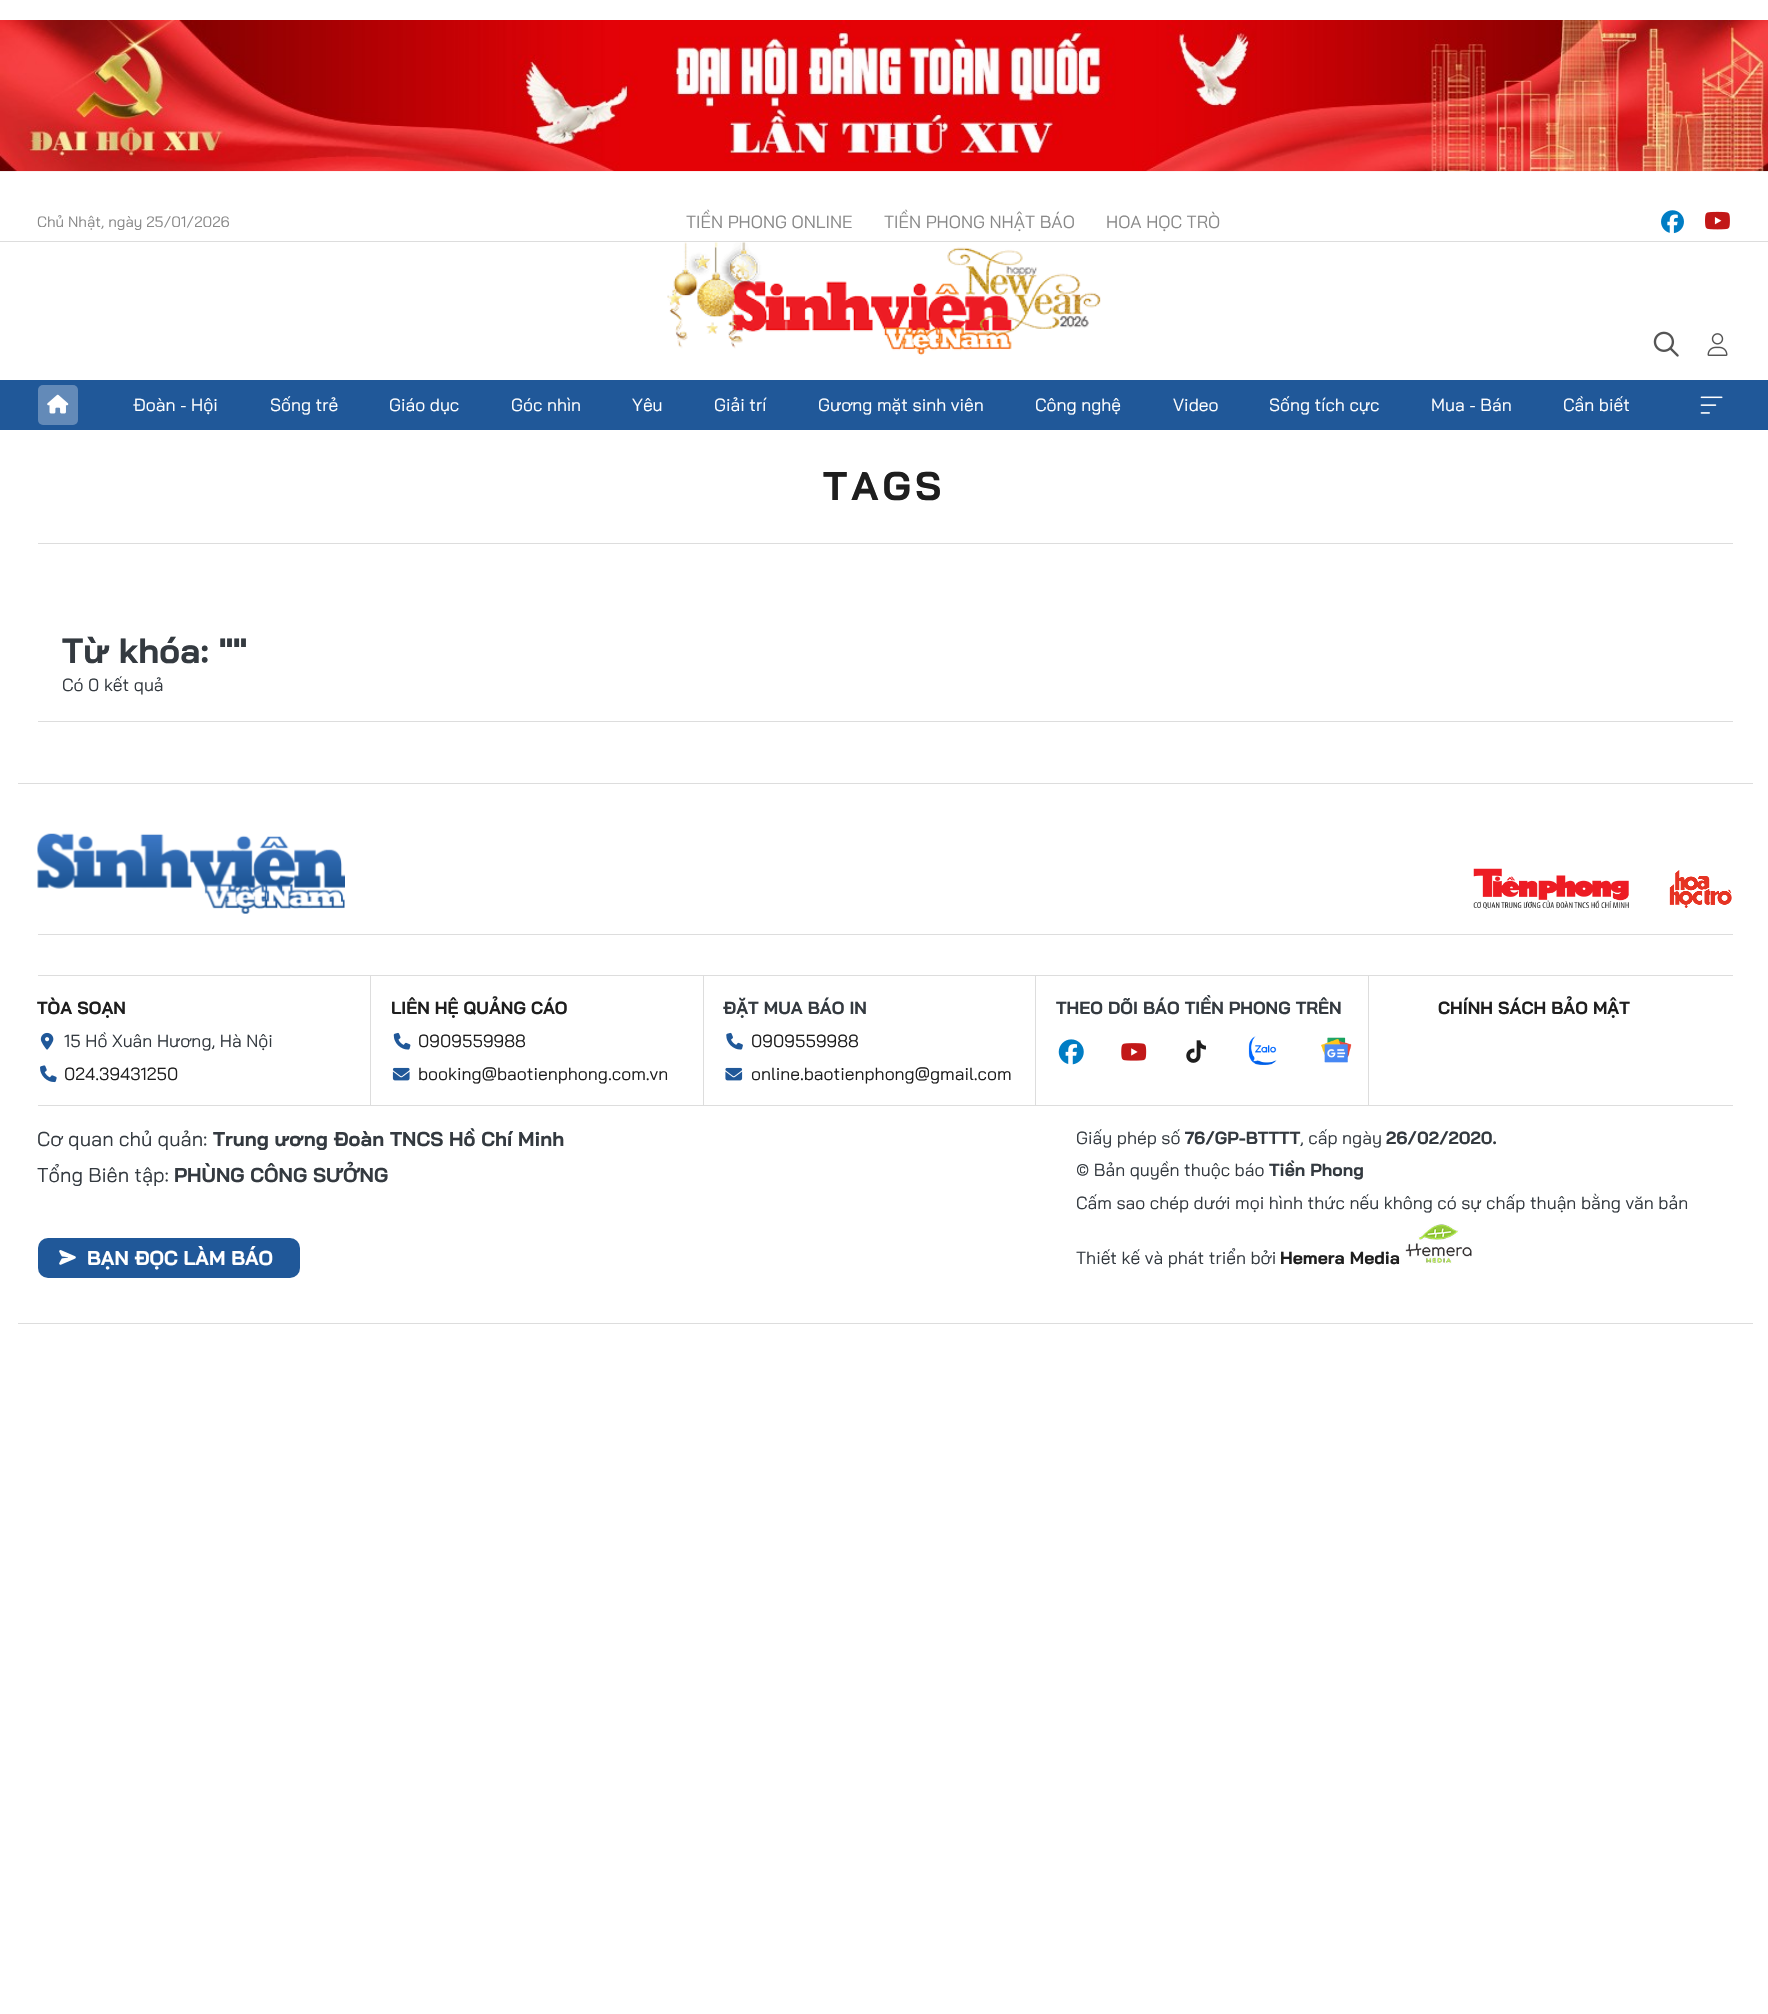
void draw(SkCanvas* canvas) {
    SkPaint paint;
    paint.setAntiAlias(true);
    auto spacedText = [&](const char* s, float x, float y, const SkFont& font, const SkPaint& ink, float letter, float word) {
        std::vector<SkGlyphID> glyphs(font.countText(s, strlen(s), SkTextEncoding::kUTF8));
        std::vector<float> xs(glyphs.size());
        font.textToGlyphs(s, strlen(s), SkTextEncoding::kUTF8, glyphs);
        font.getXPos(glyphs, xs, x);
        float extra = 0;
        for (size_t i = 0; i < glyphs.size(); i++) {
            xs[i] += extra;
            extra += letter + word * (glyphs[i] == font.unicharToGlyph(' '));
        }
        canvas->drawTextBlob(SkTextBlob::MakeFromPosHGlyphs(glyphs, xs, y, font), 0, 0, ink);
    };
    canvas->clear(0xFFFFFFFF);
    canvas->drawImageRect(SkImages::DeferredFromEncodedData(SkData::MakeFromFileName("img1.png")), SkRect::MakeXYWH(0, 20, 1768, 152), SkSamplingOptions());
    paint.setColor(0xFFDDDDDD);
    canvas->drawRect(SkRect::MakeXYWH(0, 241, 1768, 1), paint);
    SkFont font1(fontMgr->matchFamilyStyle("Bai Jamjuree", SkFontStyle::Normal()), 15);
    font1.setSubpixel(true);
    paint.setColor(0xFF888888);
    canvas->drawString("Chủ Nhật, ngày 25/01/2026", 37, 227, font1, paint);
    SkFont font2(fontMgr->matchFamilyStyle("Bai Jamjuree", SkFontStyle::Normal()), 17.5f);
    font2.setSubpixel(true);
    canvas->drawString("TIỀN PHONG ONLINE", 686, 228, font2, paint);
    canvas->drawString("TIỀN PHONG NHẬT BÁO", 884, 228, font2, paint);
    canvas->drawString("HOA HỌC TRÒ", 1106, 228, font2, paint);
    canvas->drawImageRect(SkImages::DeferredFromEncodedData(SkData::MakeFromFileName("img2.png")), SkRect::MakeXYWH(1661, 210, 23, 24), SkSamplingOptions());
    canvas->drawImageRect(SkImages::DeferredFromEncodedData(SkData::MakeFromFileName("img3.png")), SkRect::MakeXYWH(1705, 211, 25, 19), SkSamplingOptions());
    canvas->drawImageRect(SkImages::DeferredFromEncodedData(SkData::MakeFromFileName("img4.png")), SkRect::MakeXYWH(667, 242, 434, 114), SkSamplingOptions());
    canvas->drawImageRect(SkImages::DeferredFromEncodedData(SkData::MakeFromFileName("img5.png")), SkRect::MakeXYWH(1653, 331, 26, 26), SkSamplingOptions());
    canvas->drawImageRect(SkImages::DeferredFromEncodedData(SkData::MakeFromFileName("img6.png")), SkRect::MakeXYWH(1707, 333, 21, 23), SkSamplingOptions());
    paint.setColor(0xFF205899);
    canvas->drawRect(SkRect::MakeXYWH(0, 380, 1768, 50), paint);
    paint.setColor(0xFF638AB8);
    canvas->drawRoundRect(SkRect::MakeXYWH(38, 385, 40, 40), 5, 5, paint);
    canvas->drawImageRect(SkImages::DeferredFromEncodedData(SkData::MakeFromFileName("img7.png")), SkRect::MakeXYWH(47, 394, 22, 20), SkSamplingOptions());
    paint.setColor(0xFFFFFFFF);
    canvas->drawString("Đoàn - Hội", 133, 411, font2, paint);
    canvas->drawString("Sống trẻ", 270, 411, font2, paint);
    canvas->drawString("Giáo dục", 389, 411, font2, paint);
    canvas->drawString("Góc nhìn", 511, 411, font2, paint);
    canvas->drawString("Yêu", 632, 411, font2, paint);
    canvas->drawString("Giải trí", 714, 411, font2, paint);
    canvas->drawString("Gương mặt sinh viên", 818, 411, font2, paint);
    canvas->drawString("Công nghệ", 1035, 411, font2, paint);
    canvas->drawString("Video", 1173, 411, font2, paint);
    canvas->drawString("Sống tích cực", 1269, 411, font2, paint);
    canvas->drawString("Mua - Bán", 1431, 411, font2, paint);
    canvas->drawString("Cần biết", 1563, 411, font2, paint);
    canvas->drawImageRect(SkImages::DeferredFromEncodedData(SkData::MakeFromFileName("img8.png")), SkRect::MakeXYWH(1700, 396, 23, 18), SkSamplingOptions());
    paint.setColor(0xFFDDDDDD);
    canvas->drawRect(SkRect::MakeXYWH(38, 543, 1695, 1), paint);
    SkFont font3(fontMgr->matchFamilyStyle("Bai Jamjuree", SkFontStyle::Bold()), 40);
    font3.setSubpixel(true);
    paint.setColor(0xFF1E1E1E);
    spacedText("TAGS", 823, 500, font3, paint, 4, 0);
    paint.setColor(0xFFDDDDDD);
    canvas->drawRect(SkRect::MakeXYWH(38, 721, 1695, 1), paint);
    SkFont font4(fontMgr->matchFamilyStyle("Bai Jamjuree", SkFontStyle::Bold()), 35);
    font4.setSubpixel(true);
    paint.setColor(0xFF343A40);
    canvas->drawString("Từ khóa: \"\"", 62, 663, font4, paint);
    canvas->drawString("Có 0 kết quả", 62, 691, font2, paint);
    paint.setColor(0xFFDDDDDD);
    canvas->drawRect(SkRect::MakeXYWH(18, 783, 1735, 1), paint);
    canvas->drawRect(SkRect::MakeXYWH(18, 1323, 1735, 1), paint);
    canvas->drawRect(SkRect::MakeXYWH(38, 934, 1695, 1), paint);
    canvas->drawImageRect(SkImages::DeferredFromEncodedData(SkData::MakeFromFileName("img9.png")), SkRect::MakeXYWH(37, 833, 308, 81), SkSamplingOptions());
    canvas->drawImageRect(SkImages::DeferredFromEncodedData(SkData::MakeFromFileName("img10.png")), SkRect::MakeXYWH(1473, 868, 156, 41), SkSamplingOptions());
    canvas->drawImageRect(SkImages::DeferredFromEncodedData(SkData::MakeFromFileName("img11.png")), SkRect::MakeXYWH(1669, 870, 63, 38), SkSamplingOptions());
    canvas->drawRect(SkRect::MakeXYWH(38, 975, 1695, 1), paint);
    canvas->drawRect(SkRect::MakeXYWH(38, 1105, 1695, 1), paint);
    SkFont font5(fontMgr->matchFamilyStyle("Bai Jamjuree", SkFontStyle::Bold()), 17.5f);
    font5.setSubpixel(true);
    paint.setColor(0xFF1E1E1E);
    canvas->drawString("TÒA SOẠN", 37, 1014, font5, paint);
    canvas->drawImageRect(SkImages::DeferredFromEncodedData(SkData::MakeFromFileName("img12.png")), SkRect::MakeXYWH(40, 1032, 14, 18), SkSamplingOptions());
    paint.setColor(0xFF343A40);
    canvas->drawString("15 Hồ Xuân Hương, Hà Nội", 64, 1047, font2, paint);
    canvas->drawImageRect(SkImages::DeferredFromEncodedData(SkData::MakeFromFileName("img13.png")), SkRect::MakeXYWH(40, 1065, 17, 18), SkSamplingOptions());
    paint.setColor(0xFF1E1E1E);
    canvas->drawString("024.39431250", 64, 1080, font2, paint);
    paint.setColor(0xFFDDDDDD);
    canvas->drawRect(SkRect::MakeXYWH(370, 976, 1, 129), paint);
    paint.setColor(0xFF1E1E1E);
    canvas->drawString("LIÊN HỆ QUẢNG CÁO", 391, 1014, font5, paint);
    canvas->drawImageRect(SkImages::DeferredFromEncodedData(SkData::MakeFromFileName("img14.png")), SkRect::MakeXYWH(393, 1032, 18, 18), SkSamplingOptions());
    canvas->drawString("0909559988", 418, 1047, font2, paint);
    canvas->drawImageRect(SkImages::DeferredFromEncodedData(SkData::MakeFromFileName("img15.png")), SkRect::MakeXYWH(392, 1067, 18, 14), SkSamplingOptions());
    canvas->drawString("booking@baotienphong.com.vn", 418, 1080, font2, paint);
    paint.setColor(0xFFDDDDDD);
    canvas->drawRect(SkRect::MakeXYWH(703, 976, 1, 129), paint);
    paint.setColor(0xFF343A40);
    canvas->drawString("ĐẶT MUA BÁO IN", 723, 1014, font5, paint);
    canvas->drawImageRect(SkImages::DeferredFromEncodedData(SkData::MakeFromFileName("img16.png")), SkRect::MakeXYWH(726, 1032, 17, 18), SkSamplingOptions());
    paint.setColor(0xFF1E1E1E);
    canvas->drawString("0909559988", 751, 1047, font2, paint);
    canvas->drawImageRect(SkImages::DeferredFromEncodedData(SkData::MakeFromFileName("img17.png")), SkRect::MakeXYWH(725, 1067, 18, 14), SkSamplingOptions());
    canvas->drawString("online.baotienphong@gmail.com", 751, 1080, font2, paint);
    paint.setColor(0xFFDDDDDD);
    canvas->drawRect(SkRect::MakeXYWH(1035, 976, 1, 129), paint);
    paint.setColor(0xFF343A40);
    canvas->drawString("THEO DÕI BÁO TIỀN PHONG TRÊN", 1056, 1014, font5, paint);
    canvas->drawImageRect(SkImages::DeferredFromEncodedData(SkData::MakeFromFileName("img18.png")), SkRect::MakeXYWH(1058, 1039, 26, 26), SkSamplingOptions());
    canvas->drawImageRect(SkImages::DeferredFromEncodedData(SkData::MakeFromFileName("img19.png")), SkRect::MakeXYWH(1121, 1043, 26, 18), SkSamplingOptions());
    canvas->drawImageRect(SkImages::DeferredFromEncodedData(SkData::MakeFromFileName("img20.png")), SkRect::MakeXYWH(1186, 1040, 20, 23), SkSamplingOptions());
    canvas->drawImageRect(SkImages::DeferredFromEncodedData(SkData::MakeFromFileName("img21.png")), SkRect::MakeXYWH(1248, 1036, 29, 29), SkSamplingOptions());
    canvas->drawImageRect(SkImages::DeferredFromEncodedData(SkData::MakeFromFileName("img22.png")), SkRect::MakeXYWH(1321, 1037, 31, 26), SkSamplingOptions());
    paint.setColor(0xFFDDDDDD);
    canvas->drawRect(SkRect::MakeXYWH(1368, 976, 1, 129), paint);
    paint.setColor(0xFF1E1E1E);
    canvas->drawString("CHÍNH SÁCH BẢO MẬT", 1438, 1014, font5, paint);
    SkFont font6(fontMgr->matchFamilyStyle("Bai Jamjuree", SkFontStyle::Normal()), 20);
    font6.setSubpixel(true);
    paint.setColor(0xFF343A40);
    canvas->drawString("Cơ quan chủ quản:", 37, 1146, font6, paint);
    SkFont font7(fontMgr->matchFamilyStyle("Bai Jamjuree", SkFontStyle::Bold()), 20);
    font7.setSubpixel(true);
    canvas->drawString("Trung ương Đoàn TNCS Hồ Chí Minh", 213, 1146, font7, paint);
    canvas->drawString("Tổng Biên tập:", 37, 1182, font6, paint);
    canvas->drawString("PHÙNG CÔNG SƯỞNG", 174, 1182, font7, paint);
    paint.setColor(0xFF205899);
    canvas->drawRoundRect(SkRect::MakeXYWH(38, 1238, 262, 40), 10, 10, paint);
    canvas->drawImageRect(SkImages::DeferredFromEncodedData(SkData::MakeFromFileName("img23.png")), SkRect::MakeXYWH(59, 1250, 17, 15), SkSamplingOptions());
    paint.setColor(0xFFFFFFFF);
    canvas->drawString("BẠN ĐỌC LÀM BÁO", 87, 1265, font7, paint);
    paint.setColor(0xFF343A40);
    canvas->drawString("Giấy phép số", 1076, 1144, font2, paint);
    canvas->drawString("76/GP-BTTTT", 1185, 1144, font5, paint);
    canvas->drawString(", cấp ngày", 1300, 1144, font2, paint);
    canvas->drawString("26/02/2020.", 1386, 1144, font5, paint);
    canvas->drawString("© Bản quyền thuộc báo", 1076, 1176, font2, paint);
    canvas->drawString("Tiền Phong", 1269, 1176, font5, paint);
    canvas->drawString("Cấm sao chép dưới mọi hình thức nếu không có sự chấp thuận bằng văn bản", 1076, 1209, font2, paint);
    canvas->drawString("Thiết kế và phát triển bởi", 1076, 1264, font2, paint);
    paint.setColor(0xFF1E1E1E);
    canvas->drawString("Hemera Media", 1280, 1264, font5, paint);
    canvas->drawImageRect(SkImages::DeferredFromEncodedData(SkData::MakeFromFileName("img24.png")), SkRect::MakeXYWH(1405, 1224, 67, 40), SkSamplingOptions());
}
